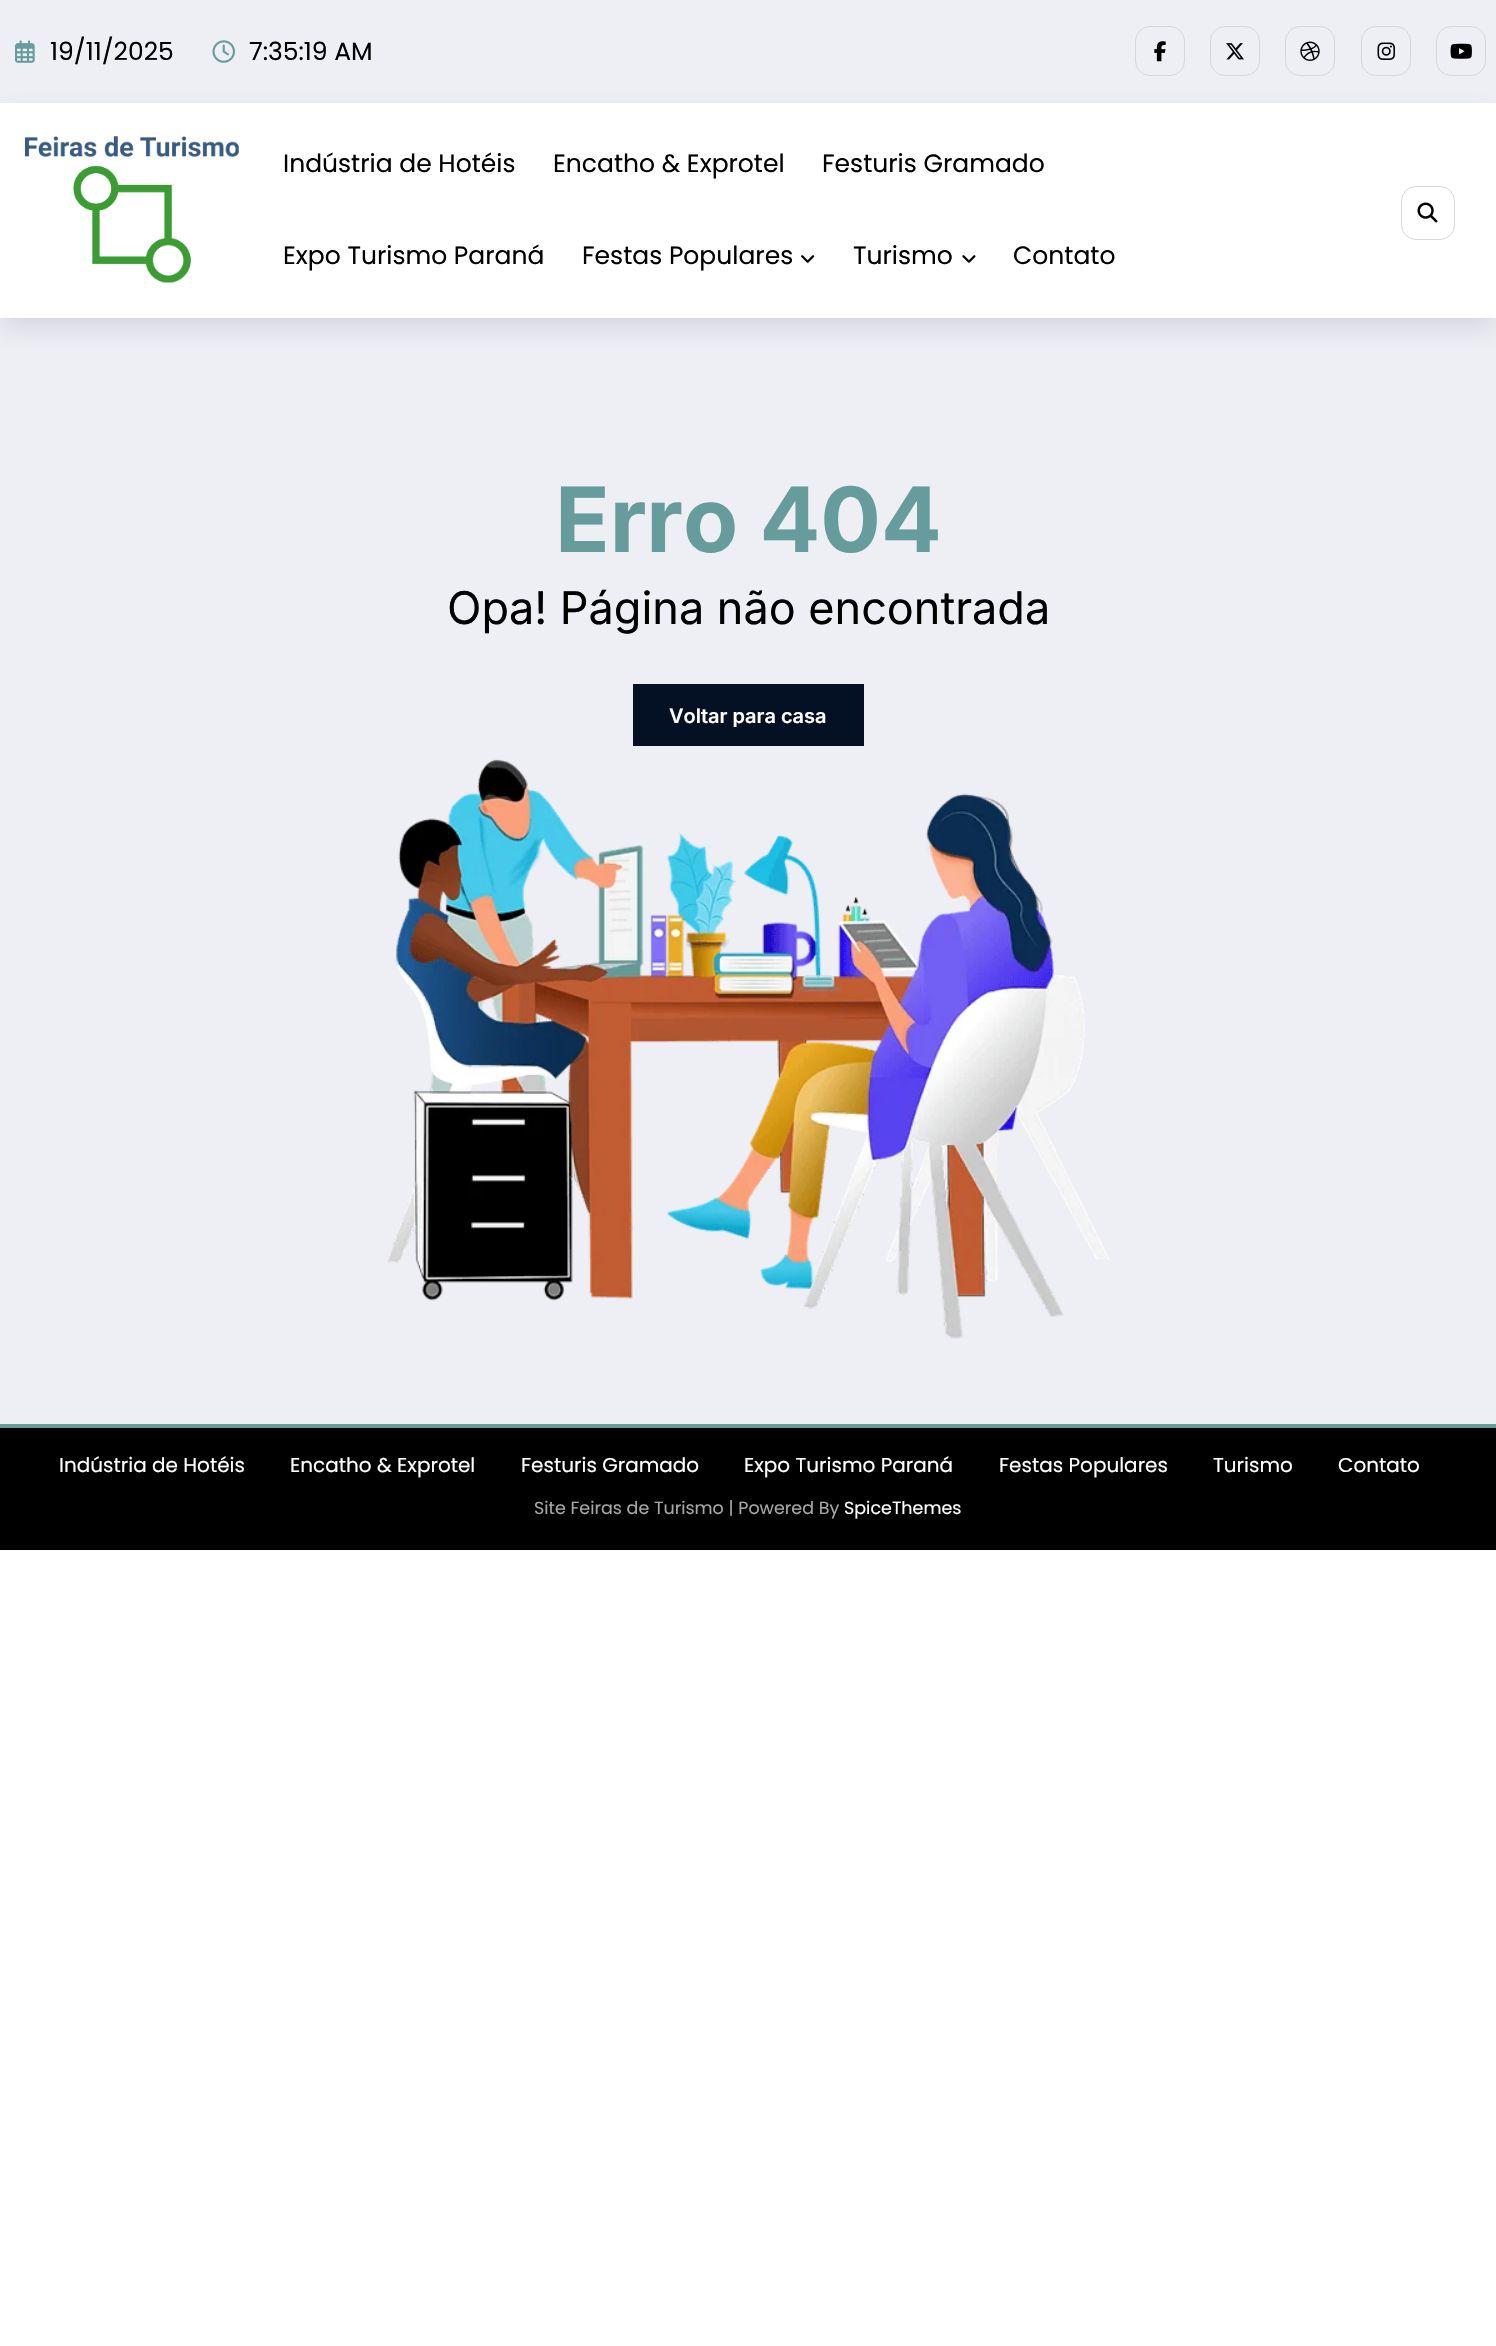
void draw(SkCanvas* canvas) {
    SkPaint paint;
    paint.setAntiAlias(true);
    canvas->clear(0xFFFFFFFF);
    paint.setColor(0xFFEEEEF5);
    canvas->drawRect(SkRect::MakeXYWH(0, 0, 1496, 1424), paint);
    canvas->drawImageRect(SkImages::DeferredFromEncodedData(SkData::MakeFromFileName("img1.png")), SkRect::MakeXYWH(15, 40, 20, 23), SkSamplingOptions());
    SkFont font1(fontMgr->matchFamilyStyle("Poppins", SkFontStyle::Normal()), 25);
    font1.setSubpixel(true);
    paint.setColor(0xFF000000);
    canvas->drawString("19/11/2025", 50, 60, font1, paint);
    canvas->drawImageRect(SkImages::DeferredFromEncodedData(SkData::MakeFromFileName("img2.png")), SkRect::MakeXYWH(212, 40, 23, 23), SkSamplingOptions());
    canvas->drawString("7:35:19 AM", 249, 60, font1, paint);
    paint.setStyle(SkPaint::kStroke_Style);
    paint.setStrokeWidth(1);
    paint.setColor(0xFFD7D7D7);
    canvas->drawRoundRect(SkRect::MakeXYWH(1135.5f, 26.5f, 49, 49), 14.5f, 14.5f, paint);
    canvas->drawImageRect(SkImages::DeferredFromEncodedData(SkData::MakeFromFileName("img3.png")), SkRect::MakeXYWH(1154, 41, 12, 21), SkSamplingOptions());
    canvas->drawRoundRect(SkRect::MakeXYWH(1210.5f, 26.5f, 49, 49), 14.5f, 14.5f, paint);
    canvas->drawImageRect(SkImages::DeferredFromEncodedData(SkData::MakeFromFileName("img4.png")), SkRect::MakeXYWH(1226, 43, 18, 17), SkSamplingOptions());
    canvas->drawRoundRect(SkRect::MakeXYWH(1285.5f, 26.5f, 49, 49), 14.5f, 14.5f, paint);
    canvas->drawImageRect(SkImages::DeferredFromEncodedData(SkData::MakeFromFileName("img5.png")), SkRect::MakeXYWH(1300, 41, 20, 20), SkSamplingOptions());
    canvas->drawRoundRect(SkRect::MakeXYWH(1361.5f, 26.5f, 49, 49), 14.5f, 14.5f, paint);
    canvas->drawImageRect(SkImages::DeferredFromEncodedData(SkData::MakeFromFileName("img6.png")), SkRect::MakeXYWH(1377, 42, 18, 18), SkSamplingOptions());
    canvas->drawRoundRect(SkRect::MakeXYWH(1436.5f, 26.5f, 49, 49), 14.5f, 14.5f, paint);
    canvas->drawImageRect(SkImages::DeferredFromEncodedData(SkData::MakeFromFileName("img7.png")), SkRect::MakeXYWH(1450, 43, 22, 16), SkSamplingOptions());
    paint.setStyle(SkPaint::kFill_Style);
    paint.setColor(0x1A141223);
    paint.setMaskFilter(SkMaskFilter::MakeBlur(kNormal_SkBlurStyle, 12.5f));
    canvas->drawRect(SkRect::MakeXYWH(0, 115, 1496, 215), paint);
    paint.setMaskFilter(nullptr);
    paint.setColor(0xFFFFFFFF);
    canvas->drawRect(SkRect::MakeXYWH(0, 103, 1496, 215), paint);
    canvas->drawImageRect(SkImages::DeferredFromEncodedData(SkData::MakeFromFileName("img8.png")), SkRect::MakeXYWH(25, 136, 214, 147), SkSamplingOptions());
    paint.setColor(0xFF000000);
    canvas->drawString("Indústria de Hotéis", 283, 172, font1, paint);
    canvas->drawString("Encatho & Exprotel", 553, 172, font1, paint);
    canvas->drawString("Festuris Gramado", 822, 172, font1, paint);
    canvas->drawString("Expo Turismo Paraná", 283, 264, font1, paint);
    canvas->drawString("Festas Populares", 582, 264, font1, paint);
    canvas->drawImageRect(SkImages::DeferredFromEncodedData(SkData::MakeFromFileName("img9.png")), SkRect::MakeXYWH(801, 255, 14, 8), SkSamplingOptions());
    canvas->drawString("Turismo", 853, 264, font1, paint);
    canvas->drawImageRect(SkImages::DeferredFromEncodedData(SkData::MakeFromFileName("img10.png")), SkRect::MakeXYWH(962, 255, 14, 8), SkSamplingOptions());
    canvas->drawString("Contato", 1013, 264, font1, paint);
    paint.setStyle(SkPaint::kStroke_Style);
    paint.setColor(0xFFD7D7D7);
    canvas->drawRoundRect(SkRect::MakeXYWH(1401.5f, 186.5f, 53, 53), 14.5f, 14.5f, paint);
    canvas->drawImageRect(SkImages::DeferredFromEncodedData(SkData::MakeFromFileName("img11.png")), SkRect::MakeXYWH(1417, 202, 21, 21), SkSamplingOptions());
    SkFont font2(fontMgr->matchFamilyStyle("Inter", SkFontStyle::Bold()), 90);
    font2.setSubpixel(true);
    paint.setStyle(SkPaint::kFill_Style);
    paint.setColor(0xFF669C9B);
    canvas->drawString("Erro 404", 555, 552, font2, paint);
    SkFont font3(fontMgr->matchFamilyStyle("Inter", SkFontStyle::Normal()), 45);
    font3.setSubpixel(true);
    paint.setColor(0xFF000000);
    canvas->drawString("Opa! Página não encontrada", 447, 624, font3, paint);
    paint.setColor(0xFF041124);
    canvas->drawRect(SkRect::MakeXYWH(633, 684, 231, 62), paint);
    SkFont font4(fontMgr->matchFamilyStyle("Inter", SkFontStyle(600, SkFontStyle::kNormal_Width, SkFontStyle::kUpright_Slant)), 20);
    font4.setSubpixel(true);
    paint.setColor(0xFFFFFFFF);
    canvas->drawString("Voltar para casa", 669, 723, font4, paint);
    canvas->drawImageRect(SkImages::DeferredFromEncodedData(SkData::MakeFromFileName("img12.png")), SkRect::MakeXYWH(387, 759, 723, 580), SkSamplingOptions());
    paint.setColor(0xFF669C9B);
    canvas->drawRect(SkRect::MakeXYWH(0, 1424, 1496, 4), paint);
    paint.setColor(0xFF000000);
    canvas->drawRect(SkRect::MakeXYWH(0, 1428, 1496, 122), paint);
    SkFont font5(fontMgr->matchFamilyStyle("Poppins", SkFontStyle::Normal()), 20);
    font5.setSubpixel(true);
    paint.setColor(0xFFFFFFFF);
    canvas->drawString("Indústria de Hotéis", 59, 1472, font5, paint);
    canvas->drawString("Encatho & Exprotel", 290, 1472, font5, paint);
    canvas->drawString("Festuris Gramado", 521, 1472, font5, paint);
    canvas->drawString("Expo Turismo Paraná", 744, 1472, font5, paint);
    canvas->drawString("Festas Populares", 999, 1472, font5, paint);
    canvas->drawString("Turismo", 1213, 1472, font5, paint);
    canvas->drawString("Contato", 1338, 1472, font5, paint);
    SkFont font6(fontMgr->matchFamilyStyle("Poppins", SkFontStyle::Normal()), 17.5f);
    font6.setSubpixel(true);
    paint.setColor(0xFFA7A7A7);
    canvas->drawString("Site Feiras de Turismo | Powered By", 534, 1514, font6, paint);
    paint.setColor(0xFFFFFFFF);
    canvas->drawString("SpiceThemes", 844, 1514, font6, paint);
}
